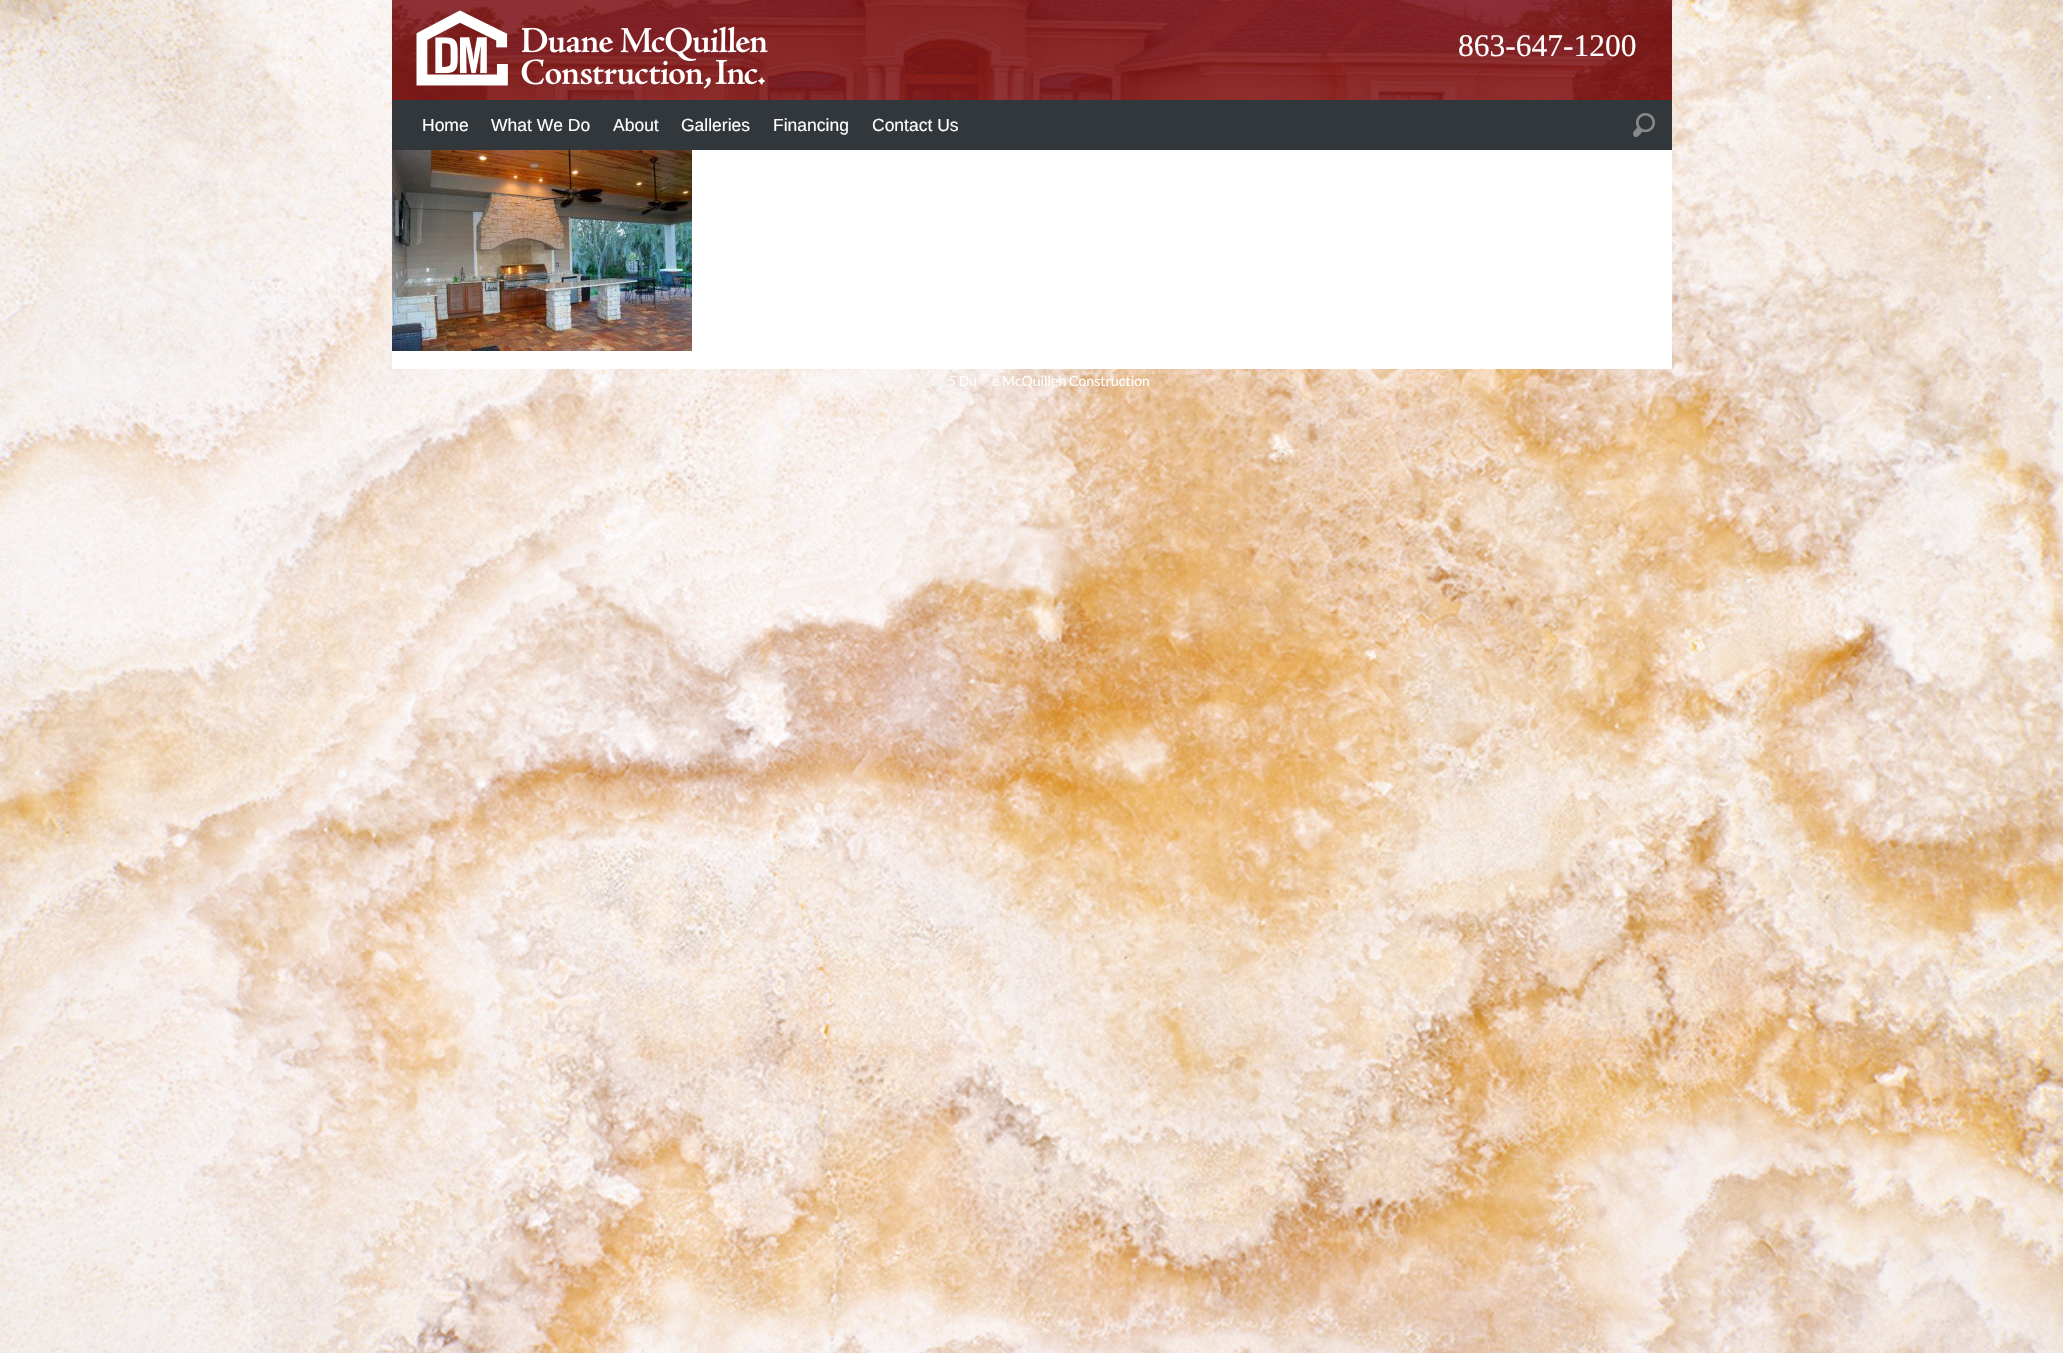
void draw(SkCanvas* canvas) {
    SkPaint paint;
    paint.setAntiAlias(true);
    canvas->clear(0xFFFFFFFF);
    canvas->drawImageRect(SkImages::DeferredFromEncodedData(SkData::MakeFromFileName("img1.png")), SkRect::MakeXYWH(0, 0, 2063, 1353), SkSamplingOptions());
    canvas->drawImageRect(SkImages::DeferredFromEncodedData(SkData::MakeFromFileName("img2.png")), SkRect::MakeXYWH(392, 0, 1280, 100), SkSamplingOptions());
    canvas->drawImageRect(SkImages::DeferredFromEncodedData(SkData::MakeFromFileName("img3.png")), SkRect::MakeXYWH(416, 10, 352, 79), SkSamplingOptions());
    SkFont font1(fontMgr->matchFamilyStyle("Liberation Serif", SkFontStyle::Normal()), 31.5f);
    font1.setSubpixel(true);
    paint.setColor(0xFFFFFFFF);
    canvas->drawString("863-647-1200", 1458, 56, font1, paint);
    paint.setColor(0xFF32373C);
    canvas->drawRect(SkRect::MakeXYWH(392, 100, 1280, 50), paint);
    SkFont font2(fontMgr->matchFamilyStyle("Liberation Sans", SkFontStyle::Normal()), 17.5f);
    font2.setSubpixel(true);
    paint.setColor(0xFFFFFFFF);
    canvas->drawString("Home", 422, 131, font2, paint);
    canvas->drawString("What We Do", 491, 131, font2, paint);
    canvas->drawString("About", 613, 131, font2, paint);
    canvas->drawString("Galleries", 681, 131, font2, paint);
    canvas->drawString("Financing", 773, 131, font2, paint);
    canvas->drawString("Contact Us", 872, 131, font2, paint);
    canvas->drawImageRect(SkImages::DeferredFromEncodedData(SkData::MakeFromFileName("img4.png")), SkRect::MakeXYWH(1633, 113, 22, 24), SkSamplingOptions());
    canvas->drawRect(SkRect::MakeXYWH(392, 150, 1280, 219), paint);
    canvas->drawImageRect(SkImages::DeferredFromEncodedData(SkData::MakeFromFileName("img5.png")), SkRect::MakeXYWH(392, 150, 300, 201), SkSamplingOptions());
    SkFont font3(fontMgr->matchFamilyStyle("Lato", SkFontStyle::Normal()), 14);
    font3.setSubpixel(true);
    canvas->drawString("5 Du", 948, 386, font3, paint);
    canvas->drawString("e McQuillen Construction", 992, 386, font3, paint);
}
